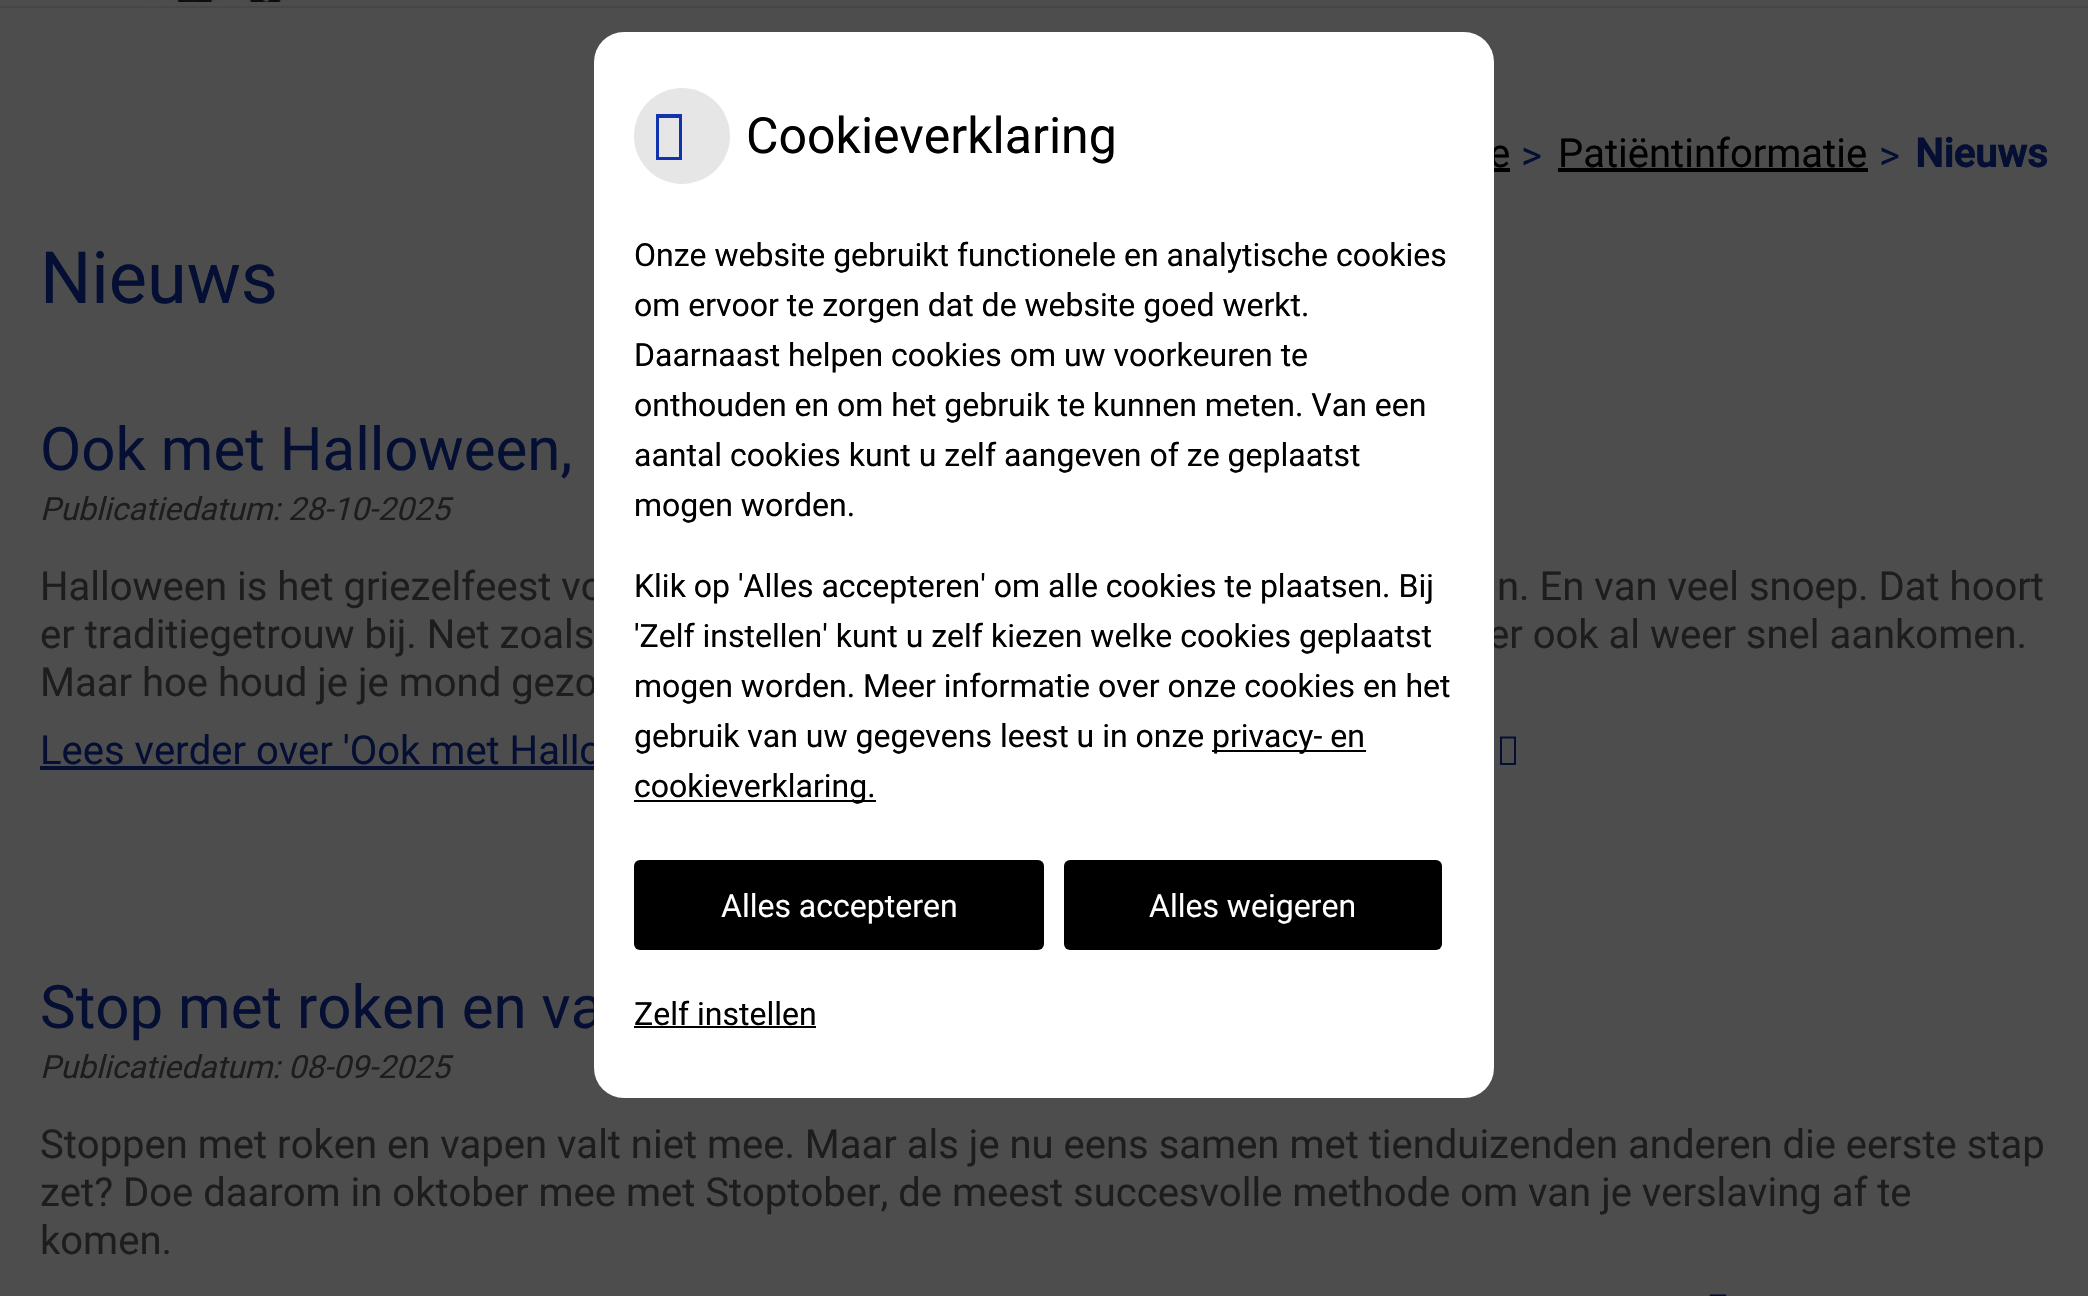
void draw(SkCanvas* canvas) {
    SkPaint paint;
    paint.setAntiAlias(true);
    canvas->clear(0xFF4D4D4D);
    paint.setColor(0xFF464646);
    canvas->drawRect(SkRect::MakeXYWH(0, 6, 2088, 2), paint);
    canvas->drawImageRect(SkImages::DeferredFromEncodedData(SkData::MakeFromFileName("img1.png")), SkRect::MakeXYWH(100, 0, 218, 2), SkSamplingOptions());
    SkFont font1(fontMgr->matchFamilyStyle("Roboto", SkFontStyle::Normal()), 40);
    font1.setSubpixel(true);
    paint.setColor(0xFF000000);
    canvas->drawString("e", 1489, 167, font1, paint);
    paint.setColor(0xFF1D1D1D);
    canvas->drawString("Halloween is het griezelfeest vo", 40, 600, font1, paint);
    canvas->drawString("er ook al weer snel aankomen.", 1488, 648, font1, paint);
    canvas->drawString("Maar hoe houd je je mond gezo", 40, 696, font1, paint);
    paint.setColor(0xFF050F34);
    canvas->drawString("Lees verder over 'Ook met Hallo", 40, 764, font1, paint);
    SkFont font2(fontMgr->matchFamilyStyle("Roboto", SkFontStyle::Normal()), 60);
    font2.setSubpixel(true);
    canvas->drawString("Stop met roken en va", 40, 1028, font2, paint);
    paint.setColor(0xFFFFFFFF);
    canvas->drawRoundRect(SkRect::MakeXYWH(594, 32, 900, 1066), 30, 30, paint);
    paint.setColor(0xFFE6E6E6);
    canvas->drawCircle(682, 136, 48, paint);
    paint.setColor(0xFF1133AD);
    canvas->drawPath(SkPathBuilder().moveTo(656, 160).lineTo(656, 114).lineTo(682, 114).lineTo(682, 160).close().moveTo(659, 157).lineTo(679, 157).lineTo(679, 118).lineTo(659, 118).close().detach(), paint);
    SkFont font3(fontMgr->matchFamilyStyle("Roboto", SkFontStyle::Normal()), 50);
    font3.setSubpixel(true);
    paint.setColor(0xFF000000);
    canvas->drawString("Cookieverklaring", 746, 153, font3, paint);
    SkFont font4(fontMgr->matchFamilyStyle("Roboto", SkFontStyle::Normal()), 32);
    font4.setSubpixel(true);
    canvas->drawString("Onze website gebruikt functionele en analytische cookies", 634, 266, font4, paint);
    canvas->drawString("om ervoor te zorgen dat de website goed werkt.", 634, 316, font4, paint);
    canvas->drawString("Daarnaast helpen cookies om uw voorkeuren te", 634, 366, font4, paint);
    canvas->drawString("onthouden en om het gebruik te kunnen meten. Van een", 634, 416, font4, paint);
    canvas->drawString("aantal cookies kunt u zelf aangeven of ze geplaatst", 634, 466, font4, paint);
    canvas->drawString("mogen worden.", 634, 516, font4, paint);
    canvas->drawString("Klik op 'Alles accepteren' om alle cookies te plaatsen. Bij", 634, 597, font4, paint);
    canvas->drawString("'Zelf instellen' kunt u zelf kiezen welke cookies geplaatst", 634, 647, font4, paint);
    canvas->drawString("mogen worden. Meer informatie over onze cookies en het", 634, 697, font4, paint);
    canvas->drawString("gebruik van uw gegevens leest u in onze", 634, 747, font4, paint);
    canvas->drawRect(SkRect::MakeXYWH(1212, 750, 154, 2), paint);
    canvas->drawString("privacy- en", 1212, 747, font4, paint);
    canvas->drawRect(SkRect::MakeXYWH(634, 800, 242, 2), paint);
    canvas->drawString("cookieverklaring.", 634, 797, font4, paint);
    canvas->drawRoundRect(SkRect::MakeXYWH(634, 860, 410, 90), 6, 6, paint);
    paint.setColor(0xFFFFFFFF);
    canvas->drawString("Alles accepteren", 721, 917, font4, paint);
    paint.setColor(0xFF000000);
    canvas->drawRoundRect(SkRect::MakeXYWH(1064, 860, 378, 90), 6, 6, paint);
    paint.setColor(0xFFFFFFFF);
    canvas->drawString("Alles weigeren", 1149, 917, font4, paint);
    paint.setColor(0xFF000000);
    canvas->drawString("Zelf instellen", 634, 1025, font4, paint);
    canvas->drawRect(SkRect::MakeXYWH(634, 1026, 182, 2), paint);
    canvas->drawRect(SkRect::MakeXYWH(1494, 168, 16, 4), paint);
    paint.setColor(0xFF050F34);
    canvas->drawString(">", 1521, 169, font1, paint);
    paint.setColor(0xFF000000);
    canvas->drawString("Patiëntinformatie", 1558, 167, font1, paint);
    canvas->drawRect(SkRect::MakeXYWH(1558, 168, 310, 4), paint);
    paint.setColor(0xFF050F34);
    canvas->drawString(">", 1879, 169, font1, paint);
    SkFont font5(fontMgr->matchFamilyStyle("Roboto", SkFontStyle::Bold()), 40);
    font5.setSubpixel(true);
    canvas->drawString("Nieuws", 1915, 167, font5, paint);
    SkFont font6(fontMgr->matchFamilyStyle("Roboto", SkFontStyle::Normal()), 72);
    font6.setSubpixel(true);
    canvas->drawString("Nieuws", 40, 303, font6, paint);
    canvas->drawString("Ook met Halloween,", 40, 470, font2, paint);
    SkFont font7(fontMgr->matchFamilyStyle("Roboto", SkFontStyle::Italic()), 32);
    font7.setSubpixel(true);
    paint.setColor(0xFF1D1D1D);
    canvas->drawString("Publicatiedatum: 28-10-2025", 40, 520, font7, paint);
    canvas->drawString("n. En van veel snoep. Dat hoort", 1497, 600, font1, paint);
    canvas->drawString("er traditiegetrouw bij. Net zoals", 40, 648, font1, paint);
    paint.setColor(0xFF050F34);
    canvas->drawRect(SkRect::MakeXYWH(40, 766, 554, 4), paint);
    canvas->drawPath(SkPathBuilder().moveTo(1500, 765).lineTo(1500, 736.5f).lineTo(1516, 736.5f).lineTo(1516, 765).close().moveTo(1502, 763).lineTo(1514, 763).lineTo(1514, 738.5f).lineTo(1502, 738.5f).close().detach(), paint);
    paint.setColor(0xFF1D1D1D);
    canvas->drawString("Publicatiedatum: 08-09-2025", 40, 1078, font7, paint);
    canvas->drawString("Stoppen met roken en vapen valt niet mee. Maar als je nu eens samen met tienduizenden anderen die eerste stap", 40, 1158, font1, paint);
    canvas->drawString("zet? Doe daarom in oktober mee met Stoptober, de meest succesvolle methode om van je verslaving af te", 40, 1206, font1, paint);
    canvas->drawString("komen.", 40, 1254, font1, paint);
    canvas->drawImageRect(SkImages::DeferredFromEncodedData(SkData::MakeFromFileName("img2.png")), SkRect::MakeXYWH(1709, 1294, 18, 2), SkSamplingOptions());
}
